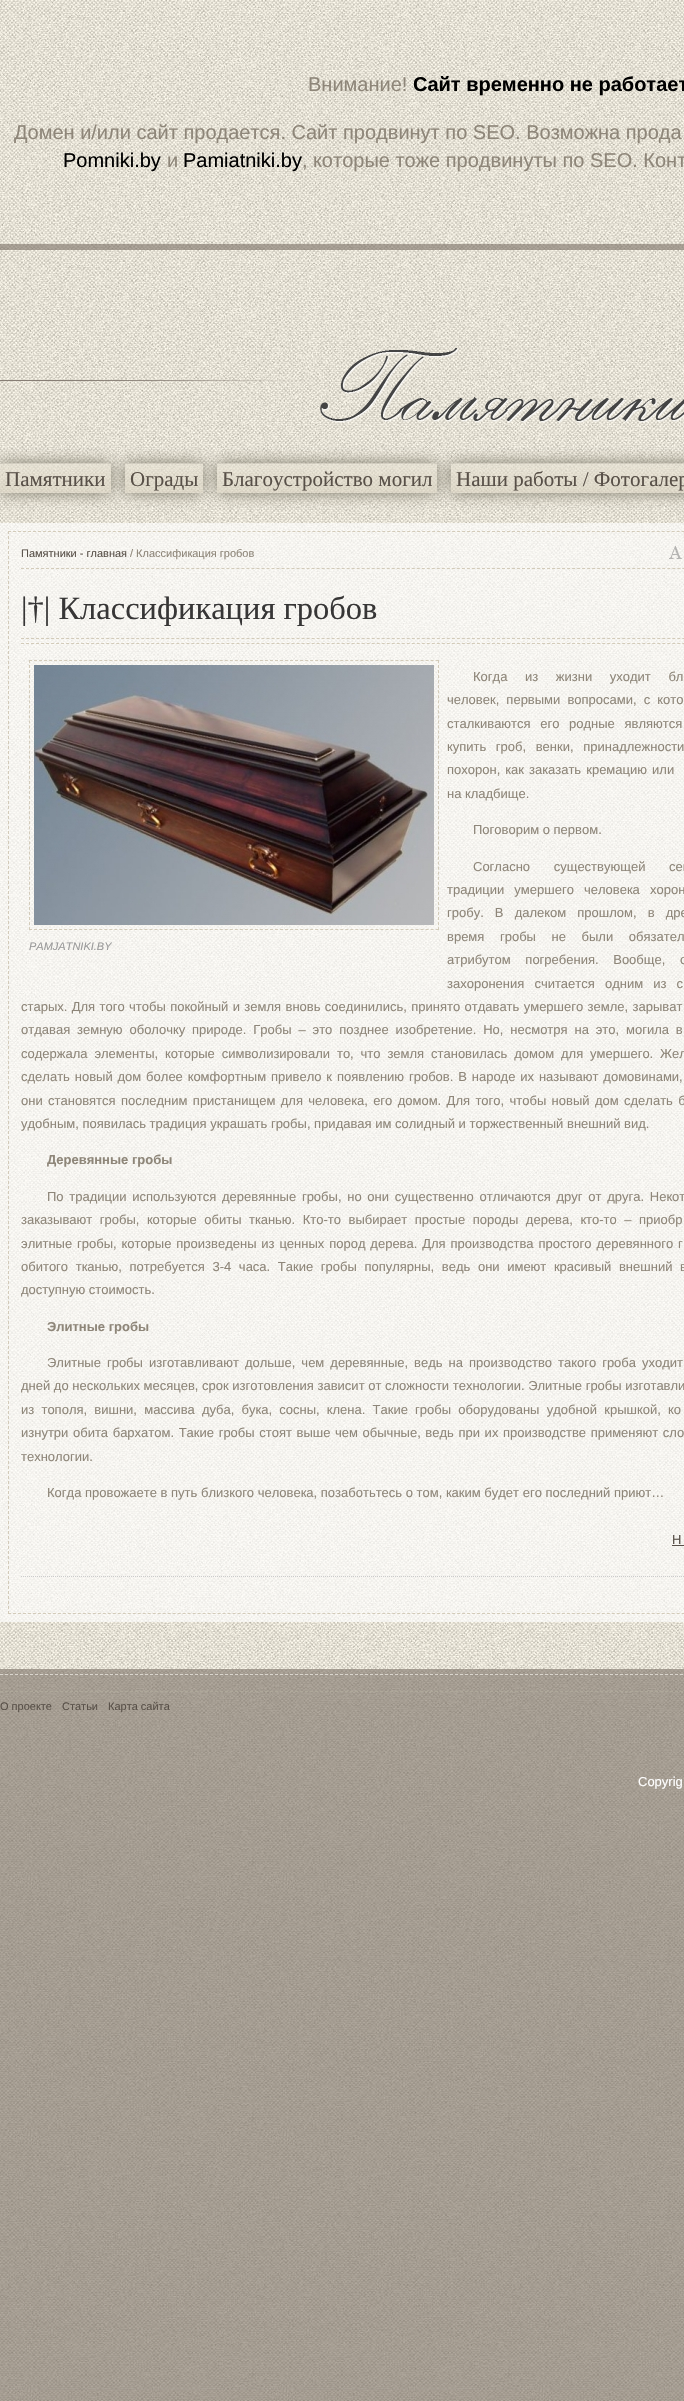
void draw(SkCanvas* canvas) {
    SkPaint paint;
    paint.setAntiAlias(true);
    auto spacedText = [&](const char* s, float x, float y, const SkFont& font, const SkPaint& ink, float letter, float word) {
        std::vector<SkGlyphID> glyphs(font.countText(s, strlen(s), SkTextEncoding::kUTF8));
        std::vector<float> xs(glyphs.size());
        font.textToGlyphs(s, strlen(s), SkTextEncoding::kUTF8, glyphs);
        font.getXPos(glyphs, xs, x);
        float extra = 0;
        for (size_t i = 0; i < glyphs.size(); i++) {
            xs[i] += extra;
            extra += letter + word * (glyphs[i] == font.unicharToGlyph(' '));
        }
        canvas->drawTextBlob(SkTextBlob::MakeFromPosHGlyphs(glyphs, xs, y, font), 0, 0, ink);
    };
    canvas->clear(0xFFFFFFFF);
    canvas->drawImageRect(SkImages::DeferredFromEncodedData(SkData::MakeFromFileName("img1.png")), SkRect::MakeXYWH(0, 244, 684, 2157), SkSamplingOptions());
    canvas->drawImageRect(SkImages::DeferredFromEncodedData(SkData::MakeFromFileName("img2.png")), SkRect::MakeXYWH(0, 0, 684, 244), SkSamplingOptions());
    SkFont font1(fontMgr->matchFamilyStyle("Liberation Sans", SkFontStyle::Normal()), 20);
    font1.setSubpixel(true);
    paint.setColor(0xFF8E8679);
    canvas->drawString("Внимание!", 308, 91, font1, paint);
    SkFont font2(fontMgr->matchFamilyStyle("Liberation Sans", SkFontStyle::Bold()), 20);
    font2.setSubpixel(true);
    paint.setColor(0xFF000000);
    canvas->drawString("Сайт временно не работает", 413, 91, font2, paint);
    paint.setColor(0xFF8E8679);
    canvas->drawString("Домен и/или сайт продается. Сайт продвинут по SEO. Возможна прода", 14, 139, font1, paint);
    paint.setColor(0xFF000000);
    canvas->drawString("Pomniki.by", 63, 167, font1, paint);
    paint.setColor(0xFF8E8679);
    canvas->drawString("и", 167, 167, font1, paint);
    paint.setColor(0xFF000000);
    canvas->drawString("Pamiatniki.by", 183, 167, font1, paint);
    paint.setColor(0xFF8E8679);
    canvas->drawString(", которые тоже продвинуты по SEO. Конт", 302, 167, font1, paint);
    canvas->drawImageRect(SkImages::DeferredFromEncodedData(SkData::MakeFromFileName("img3.png")), SkRect::MakeXYWH(0, 250, 684, 1419), SkSamplingOptions());
    canvas->drawImageRect(SkImages::DeferredFromEncodedData(SkData::MakeFromFileName("img4.png")), SkRect::MakeXYWH(0, 380, 311, 1), SkSamplingOptions());
    canvas->drawImageRect(SkImages::DeferredFromEncodedData(SkData::MakeFromFileName("img5.png")), SkRect::MakeXYWH(320, 348, 364, 75), SkSamplingOptions());
    canvas->save();
    canvas->clipPath(SkPathBuilder(SkPathFillType::kEvenOdd).moveTo(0, 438).lineTo(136, 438).lineTo(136, 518).lineTo(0, 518).close().moveTo(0, 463).lineTo(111, 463).lineTo(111, 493).lineTo(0, 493).close().detach(), true);
    paint.setColor(0xE6757162);
    paint.setMaskFilter(SkMaskFilter::MakeBlur(kNormal_SkBlurStyle, 8));
    canvas->drawRect(SkRect::MakeXYWH(0, 463, 111, 30), paint);
    paint.setMaskFilter(nullptr);
    canvas->restore();
    canvas->drawImageRect(SkImages::DeferredFromEncodedData(SkData::MakeFromFileName("img6.png")), SkRect::MakeXYWH(0, 463, 111, 30), SkSamplingOptions());
    SkFont font3(fontMgr->matchFamilyStyle("Liberation Serif", SkFontStyle::Normal()), 21);
    font3.setSubpixel(true);
    paint.setColor(0xFF585048);
    canvas->drawString("Памятники", 5, 486, font3, paint);
    canvas->save();
    canvas->clipPath(SkPathBuilder(SkPathFillType::kEvenOdd).moveTo(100, 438).lineTo(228, 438).lineTo(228, 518).lineTo(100, 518).close().moveTo(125, 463).lineTo(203, 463).lineTo(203, 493).lineTo(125, 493).close().detach(), true);
    paint.setColor(0xE6757162);
    paint.setMaskFilter(SkMaskFilter::MakeBlur(kNormal_SkBlurStyle, 8));
    canvas->drawRect(SkRect::MakeXYWH(125, 463, 78, 30), paint);
    paint.setMaskFilter(nullptr);
    canvas->restore();
    canvas->drawImageRect(SkImages::DeferredFromEncodedData(SkData::MakeFromFileName("img7.png")), SkRect::MakeXYWH(125, 463, 78, 30), SkSamplingOptions());
    paint.setColor(0xFF585048);
    canvas->drawString("Ограды", 130, 486, font3, paint);
    canvas->save();
    canvas->clipPath(SkPathBuilder(SkPathFillType::kEvenOdd).moveTo(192, 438).lineTo(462, 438).lineTo(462, 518).lineTo(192, 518).close().moveTo(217, 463).lineTo(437, 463).lineTo(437, 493).lineTo(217, 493).close().detach(), true);
    paint.setColor(0xE6757162);
    paint.setMaskFilter(SkMaskFilter::MakeBlur(kNormal_SkBlurStyle, 8));
    canvas->drawRect(SkRect::MakeXYWH(217, 463, 220, 30), paint);
    paint.setMaskFilter(nullptr);
    canvas->restore();
    canvas->drawImageRect(SkImages::DeferredFromEncodedData(SkData::MakeFromFileName("img8.png")), SkRect::MakeXYWH(217, 463, 220, 30), SkSamplingOptions());
    paint.setColor(0xFF585048);
    canvas->drawString("Благоустройство могил", 222, 486, font3, paint);
    canvas->save();
    canvas->clipPath(SkPathBuilder(SkPathFillType::kEvenOdd).moveTo(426, 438).lineTo(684, 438).lineTo(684, 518).lineTo(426, 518).close().moveTo(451, 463).lineTo(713, 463).lineTo(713, 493).lineTo(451, 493).close().detach(), true);
    paint.setColor(0xE6757162);
    paint.setMaskFilter(SkMaskFilter::MakeBlur(kNormal_SkBlurStyle, 8));
    canvas->drawRect(SkRect::MakeXYWH(451, 463, 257, 30), paint);
    paint.setMaskFilter(nullptr);
    canvas->restore();
    canvas->drawImageRect(SkImages::DeferredFromEncodedData(SkData::MakeFromFileName("img9.png")), SkRect::MakeXYWH(451, 463, 233, 30), SkSamplingOptions());
    paint.setColor(0xFF585048);
    canvas->drawString("Наши работы / Фотогалер", 456, 486, font3, paint);
    paint.setColor(0xA6FFFFFF);
    canvas->drawRect(SkRect::MakeXYWH(0, 523, 684, 1099), paint);
    paint.setStyle(SkPaint::kStroke_Style);
    paint.setStrokeWidth(1);
    paint.setColor(0xFFD3CBB9);
    paint.setPathEffect(SkDashPathEffect::Make({{3, 1.99f}}, 0));
    canvas->drawPath(SkPathBuilder().moveTo(8, 531.5f).lineTo(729, 531.5f).detach(), paint);
    paint.setPathEffect(nullptr);
    paint.setPathEffect(SkDashPathEffect::Make({{3, 1.99f}}, 0));
    canvas->drawPath(SkPathBuilder().moveTo(8, 1613.5f).lineTo(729, 1613.5f).detach(), paint);
    paint.setPathEffect(nullptr);
    paint.setPathEffect(SkDashPathEffect::Make({{3, 2}}, 0));
    canvas->drawPath(SkPathBuilder().moveTo(8.5f, 531).lineTo(8.5f, 1614).detach(), paint);
    paint.setPathEffect(nullptr);
    paint.setPathEffect(SkDashPathEffect::Make({{3, 2.01f}}, 0));
    canvas->drawPath(SkPathBuilder().moveTo(21, 568.5f).lineTo(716, 568.5f).detach(), paint);
    paint.setPathEffect(nullptr);
    SkFont font4(fontMgr->matchFamilyStyle("Liberation Sans", SkFontStyle::Normal()), 11);
    font4.setSubpixel(true);
    paint.setStyle(SkPaint::kFill_Style);
    paint.setColor(0xFF585048);
    canvas->drawString("Памятники - главная", 21, 557, font4, paint);
    paint.setColor(0xFF8E8679);
    canvas->drawString("/ Классификация гробов", 130, 557, font4, paint);
    canvas->drawImageRect(SkImages::DeferredFromEncodedData(SkData::MakeFromFileName("img10.png")), SkRect::MakeXYWH(669, 546, 13, 13), SkSamplingOptions());
    paint.setStyle(SkPaint::kStroke_Style);
    paint.setColor(0xFFCCCCCC);
    paint.setPathEffect(SkDashPathEffect::Make({{1, 1}}, 0));
    canvas->drawPath(SkPathBuilder().moveTo(21, 1576.5f).lineTo(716, 1576.5f).detach(), paint);
    paint.setPathEffect(nullptr);
    SkFont font5(fontMgr->matchFamilyStyle("Liberation Serif", SkFontStyle::Normal()), 32.5f);
    font5.setSubpixel(true);
    paint.setStyle(SkPaint::kFill_Style);
    paint.setColor(0xFF373636);
    canvas->drawString("|†| Классификация гробов", 21, 619, font5, paint);
    paint.setStyle(SkPaint::kStroke_Style);
    paint.setColor(0xFFD3CBB9);
    paint.setPathEffect(SkDashPathEffect::Make({{3, 2.01f}}, 0));
    canvas->drawPath(SkPathBuilder().moveTo(21, 638.5f).lineTo(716, 638.5f).detach(), paint);
    paint.setPathEffect(nullptr);
    paint.setPathEffect(SkDashPathEffect::Make({{3, 2.01f}}, 0));
    canvas->drawPath(SkPathBuilder().moveTo(21, 643.5f).lineTo(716, 643.5f).detach(), paint);
    paint.setPathEffect(nullptr);
    SkFont font6(fontMgr->matchFamilyStyle("Liberation Sans", SkFontStyle::Normal()), 13);
    font6.setSubpixel(true);
    paint.setStyle(SkPaint::kFill_Style);
    paint.setColor(0xFF8E8679);
    spacedText("Когда из жизни уходит бл", 473, 681, font6, paint, 0, 14);
    spacedText("человек, первыми вопросами, с кото", 447, 704, font6, paint, 0, 3.5f);
    spacedText("сталкиваются его родные являются", 447, 728, font6, paint, 0, 6);
    spacedText("купить гроб, венки, принадлежности", 447, 751, font6, paint, 0, 6);
    spacedText("похорон, как заказать кремацию или", 447, 774, font6, paint, 0, 1.5f);
    canvas->drawString("на кладбище.", 447, 798, font6, paint);
    canvas->drawString("Поговорим о первом.", 473, 834, font6, paint);
    spacedText("Согласно существующей сег", 473, 871, font6, paint, 0, 20);
    spacedText("традиции умершего человека хорон", 447, 894, font6, paint, 0, 6.5f);
    spacedText("гробу. В далеком прошлом, в дре", 447, 917, font6, paint, 0, 7.5f);
    spacedText("время гробы не были обязател", 447, 941, font6, paint, 0, 12);
    spacedText("атрибутом погребения. Вообще, о", 447, 964, font6, paint, 0, 11);
    spacedText("захоронения считается одним из с", 447, 988, font6, paint, 0, 6.5f);
    spacedText("старых. Для того чтобы покойный и земля вновь соединились, принято отдавать умершего земле, зарыват", 21, 1011, font6, paint, 0, 0.75f);
    spacedText("отдавая земную оболочку природе. Гробы – это позднее изобретение. Но, несмотря на это, могила в", 21, 1034, font6, paint, 0, 3.25f);
    spacedText("содержала элементы, которые символизировали то, что земля становилась домом для умершего. Жел", 21, 1058, font6, paint, 0, 3.25f);
    spacedText("сделать новый дом более комфортным привело к появлению гробов. В народе их называют домовинами,", 21, 1081, font6, paint, 0, 1.25f);
    spacedText("они становятся последним пристанищем для человека, его домом. Для того, чтобы новый дом сделать б", 21, 1105, font6, paint, 0, 1.75f);
    canvas->drawString("удобным, появилась традиция украшать гробы, придавая им солидный и торжественный внешний вид.", 21, 1128, font6, paint);
    SkFont font7(fontMgr->matchFamilyStyle("Liberation Sans", SkFontStyle::Bold()), 13);
    font7.setSubpixel(true);
    canvas->drawString("Деревянные гробы", 47, 1164, font7, paint);
    spacedText("По традиции используются деревянные гробы, но они существенно отличаются друг от друга. Некот", 47, 1201, font6, paint, 0, 2.1f);
    spacedText("заказывают гробы, которые обиты тканью. Кто-то выбирает простые породы дерева, кто-то – приобр", 21, 1224, font6, paint, 0, 3.9f);
    spacedText("элитные гробы, которые произведены из ценных пород дерева. Для производства простого деревянного г", 21, 1248, font6, paint, 0, 1.25f);
    spacedText("обитого тканью, потребуется 3-4 часа. Такие гробы популярны, ведь они имеют красивый внешний в", 21, 1271, font6, paint, 0, 4);
    canvas->drawString("доступную стоимость.", 21, 1294, font6, paint);
    canvas->drawString("Элитные гробы", 47, 1331, font7, paint);
    spacedText("Элитные гробы изготавливают дольше, чем деревянные, ведь на производство такого гроба уходит", 47, 1367, font6, paint, 0, 2.4f);
    canvas->drawString("дней до нескольких месяцев, срок изготовления зависит от сложности технологии. Элитные гробы изготавли", 21, 1390, font6, paint);
    spacedText("из тополя, вишни, массива дуба, бука, сосны, клена. Такие гробы оборудованы удобной крышкой, ко", 21, 1414, font6, paint, 0, 3.6f);
    spacedText("изнутри обита бархатом. Такие гробы стоят выше чем обычные, ведь при их производстве применяют сло", 21, 1437, font6, paint, 0, 1);
    canvas->drawString("технологии.", 21, 1461, font6, paint);
    canvas->drawString("Когда провожаете в путь близкого человека, позаботьтесь о том, каким будет его последний приют…", 47, 1497, font6, paint);
    paint.setStyle(SkPaint::kStroke_Style);
    paint.setColor(0xFFD3CBB9);
    paint.setPathEffect(SkDashPathEffect::Make({{3, 2.02f}}, 0));
    canvas->drawPath(SkPathBuilder().moveTo(29, 660.5f).lineTo(439, 660.5f).detach(), paint);
    paint.setPathEffect(nullptr);
    paint.setPathEffect(SkDashPathEffect::Make({{3, 2.04f}}, 0));
    canvas->drawPath(SkPathBuilder().moveTo(438.5f, 660).lineTo(438.5f, 930).detach(), paint);
    paint.setPathEffect(nullptr);
    paint.setPathEffect(SkDashPathEffect::Make({{3, 2.02f}}, 0));
    canvas->drawPath(SkPathBuilder().moveTo(29, 929.5f).lineTo(439, 929.5f).detach(), paint);
    paint.setPathEffect(nullptr);
    paint.setPathEffect(SkDashPathEffect::Make({{3, 2.04f}}, 0));
    canvas->drawPath(SkPathBuilder().moveTo(29.5f, 660).lineTo(29.5f, 930).detach(), paint);
    paint.setPathEffect(nullptr);
    canvas->drawImageRect(SkImages::DeferredFromEncodedData(SkData::MakeFromFileName("img11.png")), SkRect::MakeXYWH(34, 665, 400, 260), SkSamplingOptions());
    SkFont font8(fontMgr->matchFamilyStyle("Liberation Sans", SkFontStyle::Italic()), 11);
    font8.setSubpixel(true);
    paint.setStyle(SkPaint::kFill_Style);
    paint.setColor(0xFF999999);
    canvas->drawString("PAMJATNIKI.BY", 29, 950, font8, paint);
    paint.setColor(0xFF585048);
    canvas->drawString("Н", 672, 1544, font6, paint);
    canvas->drawRect(SkRect::MakeXYWH(672, 1545, 12, 1), paint);
    paint.setStyle(SkPaint::kStroke_Style);
    paint.setColor(0xFFDAD6CE);
    paint.setPathEffect(SkDashPathEffect::Make({{3, 2}}, 0));
    canvas->drawPath(SkPathBuilder().moveTo(0, 1674.5f).lineTo(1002, 1674.5f).detach(), paint);
    paint.setPathEffect(nullptr);
    paint.setColor(0xFFAEA899);
    paint.setPathEffect(SkDashPathEffect::Make({{3, 2}}, 0));
    canvas->drawPath(SkPathBuilder().moveTo(0, 1691.5f).lineTo(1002, 1691.5f).detach(), paint);
    paint.setPathEffect(nullptr);
    paint.setStyle(SkPaint::kFill_Style);
    paint.setColor(0xFF585048);
    canvas->drawString("О проекте", 0, 1710, font4, paint);
    canvas->drawString("Статьи", 62, 1710, font4, paint);
    canvas->drawString("Карта сайта", 108, 1710, font4, paint);
    paint.setColor(0xFFFFFFFF);
    canvas->drawString("Copyrig", 638, 1786, font6, paint);
}
